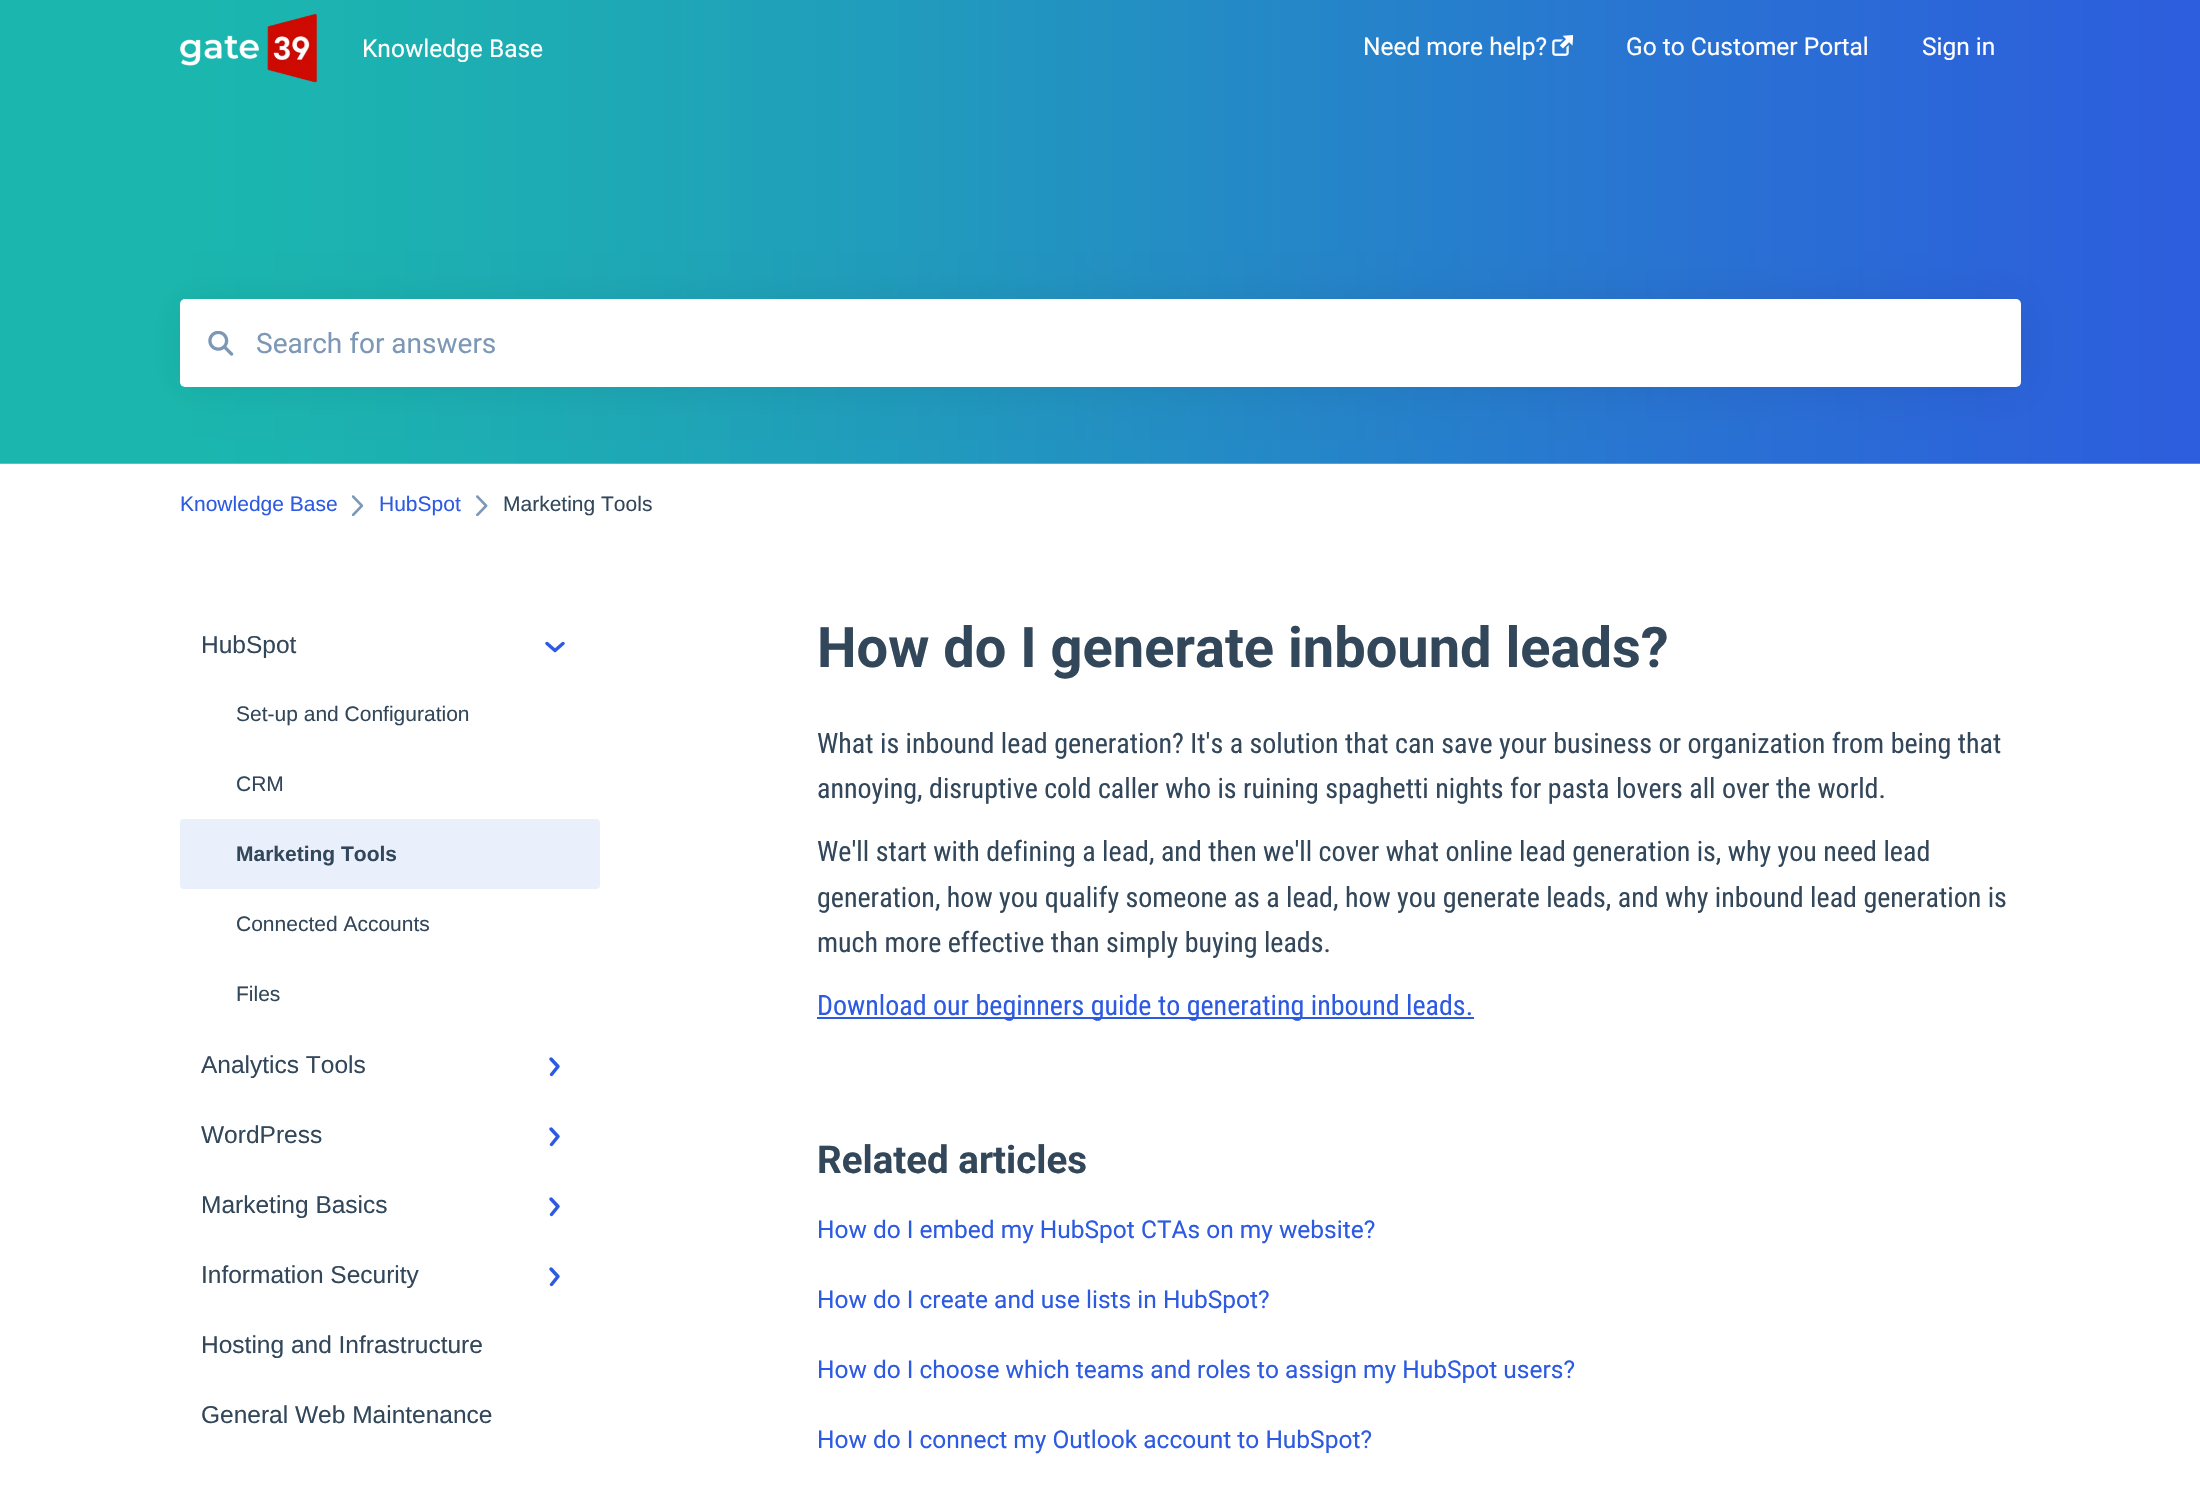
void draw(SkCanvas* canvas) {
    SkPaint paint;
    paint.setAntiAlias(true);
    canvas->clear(0xFFFFFFFF);
    canvas->drawImageRect(SkImages::DeferredFromEncodedData(SkData::MakeFromFileName("img3.png")), SkRect::MakeXYWH(0, 0, 2200, 464), SkSamplingOptions());
    canvas->drawImageRect(SkImages::DeferredFromEncodedData(SkData::MakeFromFileName("img1.png")), SkRect::MakeXYWH(180, 14, 137, 69), SkSamplingOptions());
    SkFont font1(fontMgr->matchFamilyStyle("Roboto", SkFontStyle::Normal()), 24.5f);
    font1.setSubpixel(true);
    paint.setColor(0xFFFFFFFF);
    canvas->drawString("Knowledge Base", 362, 57, font1, paint);
    canvas->drawString("Need more help?", 1363, 55, font1, paint);
    canvas->drawImageRect(SkImages::DeferredFromEncodedData(SkData::MakeFromFileName("img2.png")), SkRect::MakeXYWH(1552, 35, 21, 21), SkSamplingOptions());
    canvas->drawString("Go to Customer Portal", 1626, 55, font1, paint);
    canvas->drawString("Sign in", 1922, 55, font1, paint);
    paint.setColor(0x14000000);
    paint.setMaskFilter(SkMaskFilter::MakeBlur(kNormal_SkBlurStyle, 21));
    canvas->drawRoundRect(SkRect::MakeXYWH(180, 301, 1841, 88), 5, 5, paint);
    paint.setMaskFilter(nullptr);
    paint.setColor(0xFFFFFFFF);
    canvas->drawRoundRect(SkRect::MakeXYWH(180, 299, 1841, 88), 5, 5, paint);
    canvas->drawImageRect(SkImages::DeferredFromEncodedData(SkData::MakeFromFileName("img4.png")), SkRect::MakeXYWH(208, 331, 26, 25), SkSamplingOptions());
    SkFont font2(fontMgr->matchFamilyStyle("Roboto", SkFontStyle::Normal()), 28);
    font2.setSubpixel(true);
    paint.setColor(0xFF7C98B6);
    canvas->drawString("Search for answers", 256, 353, font2, paint);
    SkFont font3(fontMgr->matchFamilyStyle("Liberation Sans", SkFontStyle::Normal()), 21);
    font3.setSubpixel(true);
    paint.setColor(0xFF2D5AE2);
    canvas->drawString("Knowledge Base", 180, 511, font3, paint);
    canvas->drawImageRect(SkImages::DeferredFromEncodedData(SkData::MakeFromFileName("img5.png")), SkRect::MakeXYWH(352, 495, 12, 21), SkSamplingOptions());
    canvas->drawString("HubSpot", 379, 511, font3, paint);
    canvas->drawImageRect(SkImages::DeferredFromEncodedData(SkData::MakeFromFileName("img6.png")), SkRect::MakeXYWH(476, 495, 12, 21), SkSamplingOptions());
    paint.setColor(0xFF33475B);
    canvas->drawString("Marketing Tools", 503, 511, font3, paint);
    SkFont font4(fontMgr->matchFamilyStyle("Liberation Sans", SkFontStyle::Normal()), 24.5f);
    font4.setSubpixel(true);
    canvas->drawString("HubSpot", 201, 653, font4, paint);
    paint.setStyle(SkPaint::kStroke_Style);
    paint.setStrokeWidth(3.5f);
    paint.setStrokeCap(SkPaint::kRound_Cap);
    paint.setStrokeJoin(SkPaint::kRound_Join);
    paint.setColor(0xFF2D5AE2);
    canvas->drawPath(SkPathBuilder().moveTo(563, 643.5f).lineTo(555, 650.5f).lineTo(547, 643.5f).detach(), paint);
    paint.setStyle(SkPaint::kFill_Style);
    paint.setColor(0xFF33475B);
    canvas->drawString("Set-up and Configuration", 236, 721, font3, paint);
    canvas->drawString("CRM", 236, 791, font3, paint);
    paint.setColor(0xFFEAEFFC);
    canvas->drawRoundRect(SkRect::MakeXYWH(180, 819, 420, 70), 4, 4, paint);
    SkFont font5(fontMgr->matchFamilyStyle("Liberation Sans", SkFontStyle::Bold()), 21);
    font5.setSubpixel(true);
    paint.setColor(0xFF33475B);
    canvas->drawString("Marketing Tools", 236, 861, font5, paint);
    canvas->drawString("Connected Accounts", 236, 931, font3, paint);
    canvas->drawString("Files", 236, 1001, font3, paint);
    canvas->drawString("Analytics Tools", 201, 1073, font4, paint);
    paint.setStyle(SkPaint::kStroke_Style);
    paint.setColor(0xFF2D5AE2);
    canvas->drawPath(SkPathBuilder().moveTo(551, 1059).lineTo(558, 1066.5f).lineTo(551.5f, 1074.5f).detach(), paint);
    paint.setStyle(SkPaint::kFill_Style);
    paint.setColor(0xFF33475B);
    canvas->drawString("WordPress", 201, 1143, font4, paint);
    paint.setStyle(SkPaint::kStroke_Style);
    paint.setColor(0xFF2D5AE2);
    canvas->drawPath(SkPathBuilder().moveTo(551, 1129).lineTo(558, 1136.5f).lineTo(551.5f, 1144.5f).detach(), paint);
    paint.setStyle(SkPaint::kFill_Style);
    paint.setColor(0xFF33475B);
    canvas->drawString("Marketing Basics", 201, 1213, font4, paint);
    paint.setStyle(SkPaint::kStroke_Style);
    paint.setColor(0xFF2D5AE2);
    canvas->drawPath(SkPathBuilder().moveTo(551, 1199).lineTo(558, 1206.5f).lineTo(551.5f, 1214.5f).detach(), paint);
    paint.setStyle(SkPaint::kFill_Style);
    paint.setColor(0xFF33475B);
    canvas->drawString("Information Security", 201, 1283, font4, paint);
    paint.setStyle(SkPaint::kStroke_Style);
    paint.setColor(0xFF2D5AE2);
    canvas->drawPath(SkPathBuilder().moveTo(551, 1269).lineTo(558, 1276.5f).lineTo(551.5f, 1284.5f).detach(), paint);
    paint.setStyle(SkPaint::kFill_Style);
    paint.setColor(0xFF33475B);
    canvas->drawString("Hosting and Infrastructure", 201, 1353, font4, paint);
    canvas->drawString("General Web Maintenance", 201, 1423, font4, paint);
    SkFont font6(fontMgr->matchFamilyStyle("Roboto", SkFontStyle::Bold()), 56);
    font6.setSubpixel(true);
    canvas->drawString("How do I generate inbound leads?", 817, 667, font6, paint);
    SkFont font7(fontMgr->matchFamilyStyle("Roboto Condensed", SkFontStyle::Normal()), 28);
    font7.setSubpixel(true);
    canvas->drawString("What is inbound lead generation? It's a solution that can save your business or organization from being that", 817, 753, font7, paint);
    canvas->drawString("annoying, disruptive cold caller who is ruining spaghetti nights for pasta lovers all over the world.", 817, 798, font7, paint);
    canvas->drawString("We'll start with defining a lead, and then we'll cover what online lead generation is, why you need lead", 817, 861, font7, paint);
    canvas->drawString("generation, how you qualify someone as a lead, how you generate leads, and why inbound lead generation is", 817, 907, font7, paint);
    canvas->drawString("much more effective than simply buying leads.", 817, 952, font7, paint);
    paint.setColor(0xFF2D5AE2);
    canvas->drawRect(SkRect::MakeXYWH(817, 1017, 657, 2), paint);
    canvas->drawString("Download our beginners guide to generating inbound leads.", 817, 1015, font7, paint);
    SkFont font8(fontMgr->matchFamilyStyle("Roboto", SkFontStyle::Bold()), 38.5f);
    font8.setSubpixel(true);
    paint.setColor(0xFF33475B);
    canvas->drawString("Related articles", 817, 1173, font8, paint);
    paint.setColor(0xFF2D5AE2);
    canvas->drawString("How do I embed my HubSpot CTAs on my website?", 817, 1238, font1, paint);
    canvas->drawString("How do I create and use lists in HubSpot?", 817, 1308, font1, paint);
    canvas->drawString("How do I choose which teams and roles to assign my HubSpot users?", 817, 1378, font1, paint);
    canvas->drawString("How do I connect my Outlook account to HubSpot?", 817, 1448, font1, paint);
}
